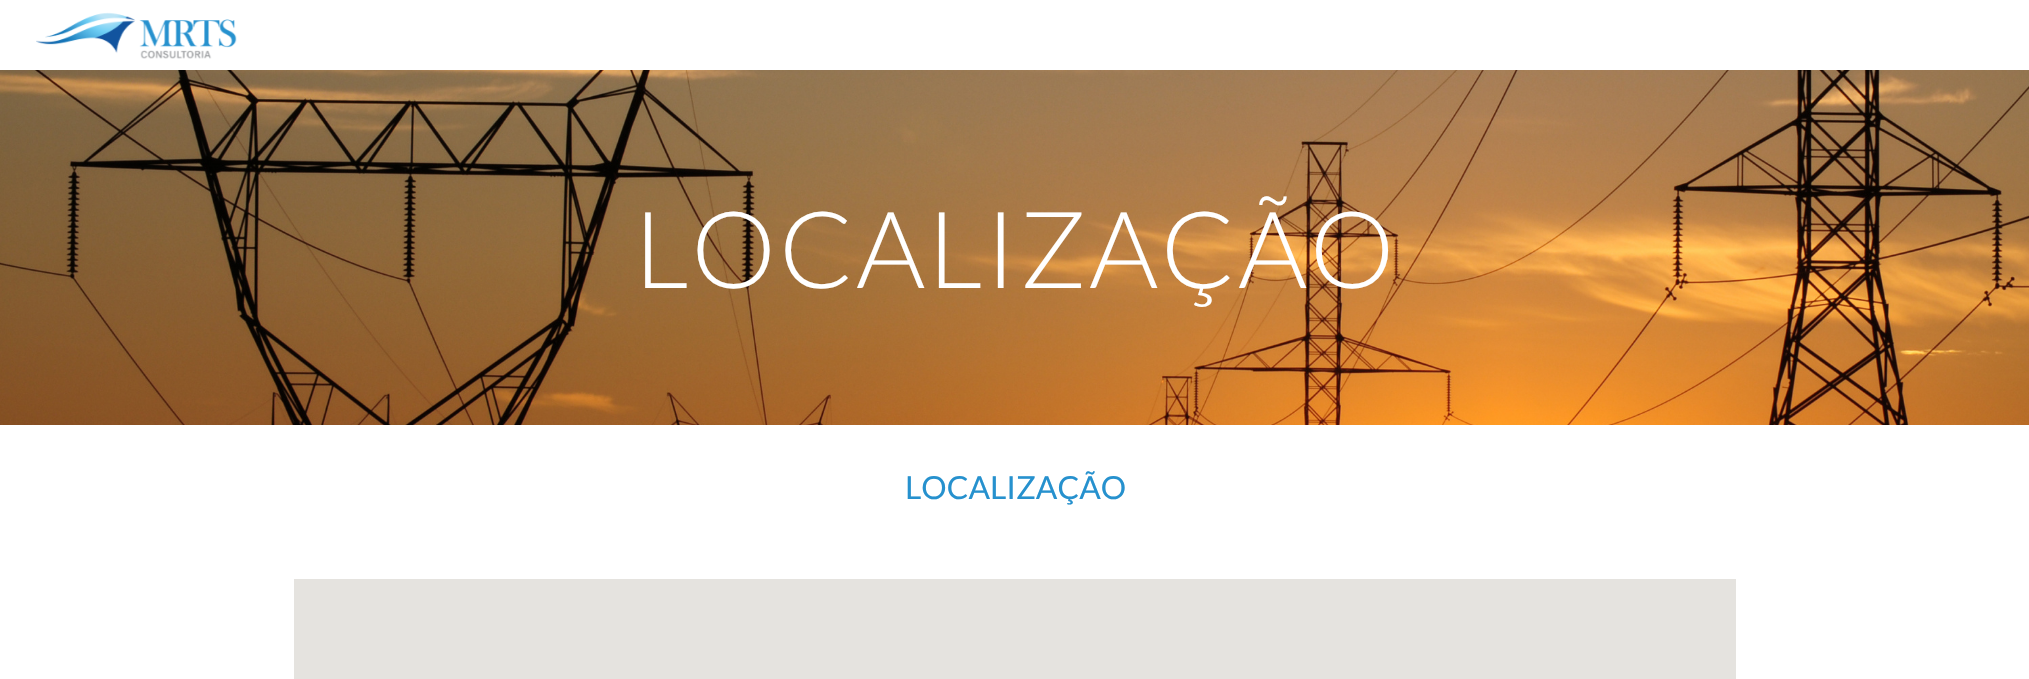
void draw(SkCanvas* canvas) {
    SkPaint paint;
    paint.setAntiAlias(true);
    auto spacedText = [&](const char* s, float x, float y, const SkFont& font, const SkPaint& ink, float letter, float word) {
        std::vector<SkGlyphID> glyphs(font.countText(s, strlen(s), SkTextEncoding::kUTF8));
        std::vector<float> xs(glyphs.size());
        font.textToGlyphs(s, strlen(s), SkTextEncoding::kUTF8, glyphs);
        font.getXPos(glyphs, xs, x);
        float extra = 0;
        for (size_t i = 0; i < glyphs.size(); i++) {
            xs[i] += extra;
            extra += letter + word * (glyphs[i] == font.unicharToGlyph(' '));
        }
        canvas->drawTextBlob(SkTextBlob::MakeFromPosHGlyphs(glyphs, xs, y, font), 0, 0, ink);
    };
    canvas->clear(0xFFFFFFFF);
    canvas->drawImageRect(SkImages::DeferredFromEncodedData(SkData::MakeFromFileName("img1.png")), SkRect::MakeXYWH(36, 12, 201, 47), SkSamplingOptions());
    canvas->drawImageRect(SkImages::DeferredFromEncodedData(SkData::MakeFromFileName("img2.png")), SkRect::MakeXYWH(0, 70, 2029, 355), SkSamplingOptions());
    SkFont font1(fontMgr->matchFamilyStyle("Lato", SkFontStyle(300, SkFontStyle::kNormal_Width, SkFontStyle::kUpright_Slant)), 106.75f);
    font1.setSubpixel(true);
    paint.setColor(0xFFFFFFFF);
    spacedText("LOCALIZAÇÃO", 634, 288, font1, paint, 2.5f, 0);
    SkFont font2(fontMgr->matchFamilyStyle("Lato", SkFontStyle::Normal()), 31.75f);
    font2.setSubpixel(true);
    paint.setColor(0xFF2691CE);
    canvas->drawString("LOCALIZAÇÃO", 905, 499, font2, paint);
    paint.setColor(0xFFE5E3DF);
    canvas->drawRect(SkRect::MakeXYWH(294, 579, 1442, 100), paint);
}
